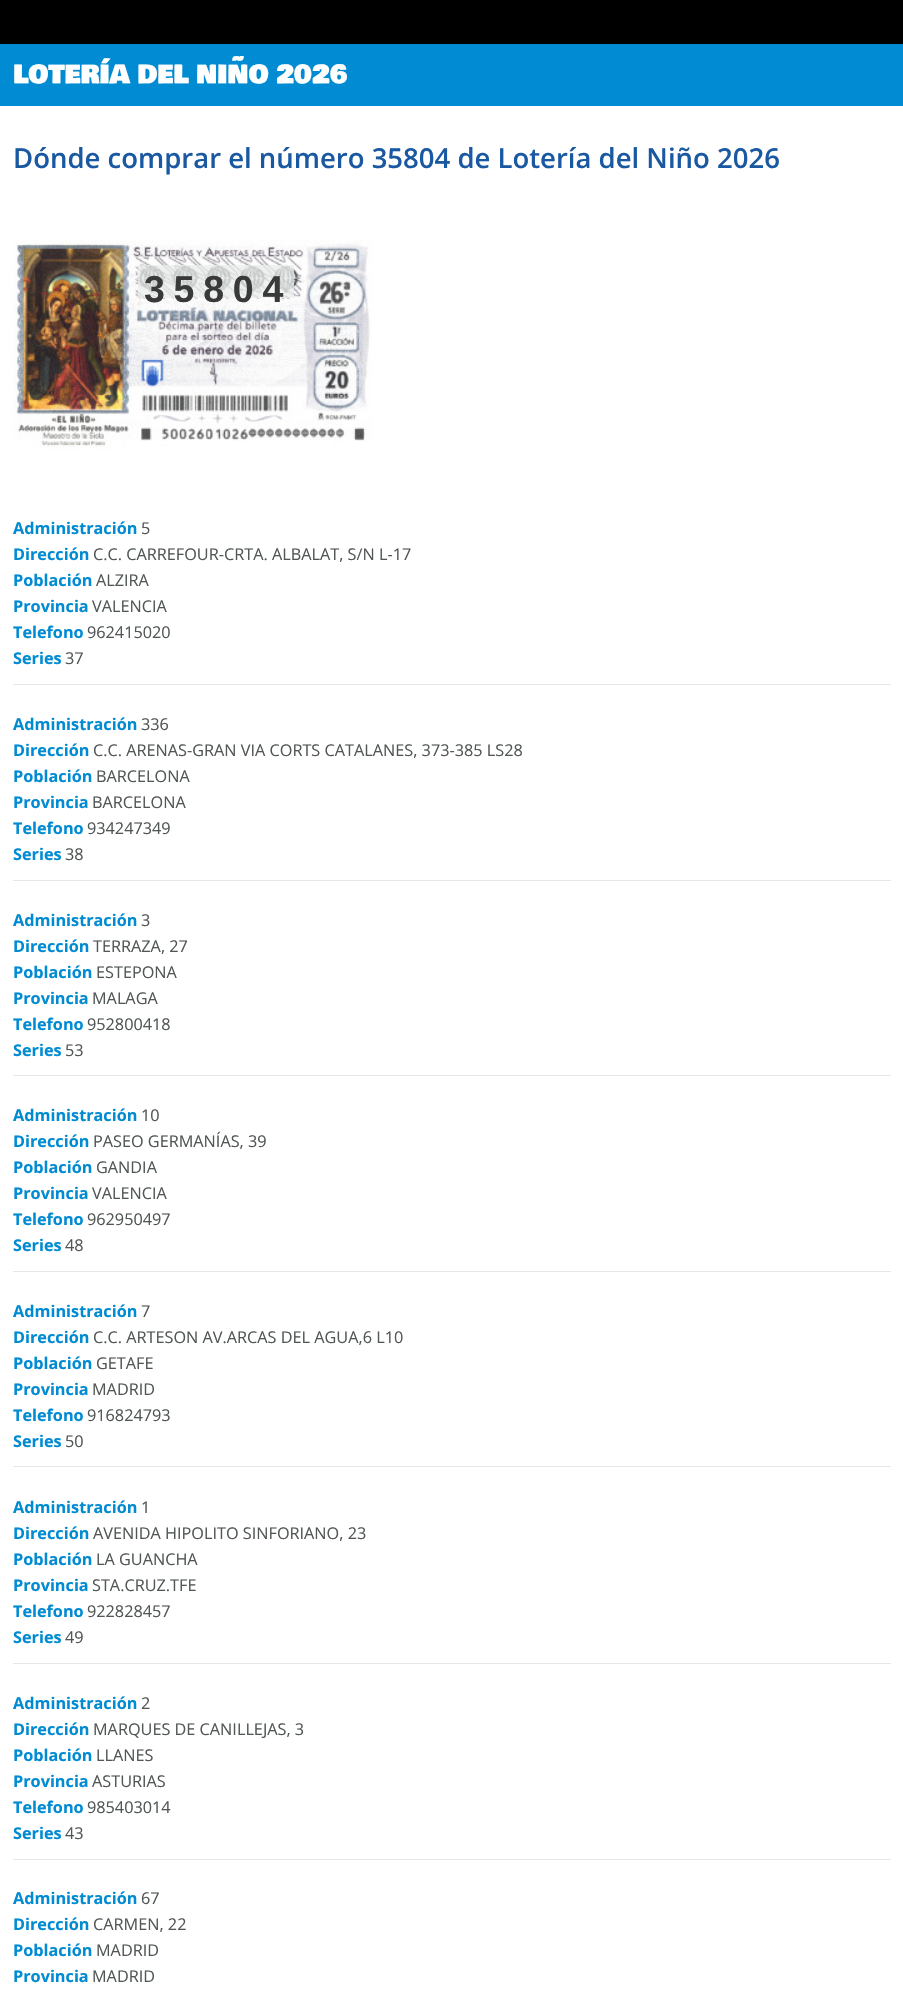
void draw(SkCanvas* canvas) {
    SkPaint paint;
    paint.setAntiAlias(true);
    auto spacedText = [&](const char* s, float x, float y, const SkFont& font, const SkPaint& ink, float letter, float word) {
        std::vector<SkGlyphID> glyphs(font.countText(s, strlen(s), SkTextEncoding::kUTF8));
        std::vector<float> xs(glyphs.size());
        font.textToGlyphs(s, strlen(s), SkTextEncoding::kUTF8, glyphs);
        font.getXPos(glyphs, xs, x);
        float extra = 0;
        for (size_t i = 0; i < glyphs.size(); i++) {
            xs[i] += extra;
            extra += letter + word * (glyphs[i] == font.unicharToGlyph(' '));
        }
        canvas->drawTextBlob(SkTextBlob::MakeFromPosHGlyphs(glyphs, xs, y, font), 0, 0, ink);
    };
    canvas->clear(0xFFFFFFFF);
    paint.setColor(0xFF000000);
    canvas->drawRect(SkRect::MakeXYWH(0, 0, 903, 44), paint);
    paint.setColor(0xFF008BD2);
    canvas->drawRect(SkRect::MakeXYWH(0, 44, 903, 62), paint);
    SkFont font1(fontMgr->matchFamilyStyle("Bowlby One SC", SkFontStyle::Normal()), 25);
    font1.setSubpixel(true);
    paint.setColor(0xFFFFFFFF);
    canvas->drawString("LOTERÍA DEL NIÑO 2026", 13, 83, font1, paint);
    SkFont font2(fontMgr->matchFamilyStyle("Open Sans", SkFontStyle(600, SkFontStyle::kNormal_Width, SkFontStyle::kUpright_Slant)), 27.5f);
    font2.setSubpixel(true);
    paint.setColor(0xFF1A59A2);
    canvas->drawString("Dónde comprar el número 35804 de Lotería del Niño 2026", 13, 168, font2, paint);
    canvas->drawImageRect(SkImages::DeferredFromEncodedData(SkData::MakeFromFileName("img1.png")), SkRect::MakeXYWH(13, 240, 359, 210), SkSamplingOptions());
    paint.setColor(0xBFE9EDEC);
    canvas->drawRect(SkRect::MakeXYWH(138, 265, 156, 33), paint);
    SkFont font3(fontMgr->matchFamilyStyle("Liberation Sans", SkFontStyle::Bold()), 37.5f);
    font3.setSubpixel(true);
    paint.setColor(0xFF393939);
    spacedText("35804", 144, 302, font3, paint, 8.75f, 0);
    SkFont font4(fontMgr->matchFamilyStyle("Open Sans", SkFontStyle::Bold()), 16.25f);
    font4.setSubpixel(true);
    paint.setColor(0xFF008BD2);
    canvas->drawString("Administración", 13, 534, font4, paint);
    SkFont font5(fontMgr->matchFamilyStyle("Open Sans", SkFontStyle::Normal()), 16.25f);
    font5.setSubpixel(true);
    paint.setColor(0xFF515756);
    canvas->drawString("5", 141, 534, font5, paint);
    paint.setColor(0xFF008BD2);
    canvas->drawString("Dirección", 13, 560, font4, paint);
    paint.setColor(0xFF515756);
    canvas->drawString("C.C. CARREFOUR-CRTA. ALBALAT, S/N L-17", 93, 560, font5, paint);
    paint.setColor(0xFF008BD2);
    canvas->drawString("Población", 13, 586, font4, paint);
    paint.setColor(0xFF515756);
    canvas->drawString("ALZIRA", 96, 586, font5, paint);
    paint.setColor(0xFF008BD2);
    canvas->drawString("Provincia", 13, 612, font4, paint);
    paint.setColor(0xFF515756);
    canvas->drawString("VALENCIA", 92, 612, font5, paint);
    paint.setColor(0xFF008BD2);
    canvas->drawString("Telefono", 13, 638, font4, paint);
    paint.setColor(0xFF515756);
    canvas->drawString("962415020", 87, 638, font5, paint);
    paint.setColor(0xFF008BD2);
    canvas->drawString("Series", 13, 664, font4, paint);
    paint.setColor(0xFF515756);
    canvas->drawString("37", 65, 664, font5, paint);
    paint.setColor(0xFFE6E6E6);
    canvas->drawRect(SkRect::MakeXYWH(13, 684, 878, 1), paint);
    paint.setColor(0xFF008BD2);
    canvas->drawString("Administración", 13, 730, font4, paint);
    paint.setColor(0xFF515756);
    canvas->drawString("336", 141, 730, font5, paint);
    paint.setColor(0xFF008BD2);
    canvas->drawString("Dirección", 13, 756, font4, paint);
    paint.setColor(0xFF515756);
    canvas->drawString("C.C. ARENAS-GRAN VIA CORTS CATALANES, 373-385 LS28", 93, 756, font5, paint);
    paint.setColor(0xFF008BD2);
    canvas->drawString("Población", 13, 782, font4, paint);
    paint.setColor(0xFF515756);
    canvas->drawString("BARCELONA", 96, 782, font5, paint);
    paint.setColor(0xFF008BD2);
    canvas->drawString("Provincia", 13, 808, font4, paint);
    paint.setColor(0xFF515756);
    canvas->drawString("BARCELONA", 92, 808, font5, paint);
    paint.setColor(0xFF008BD2);
    canvas->drawString("Telefono", 13, 834, font4, paint);
    paint.setColor(0xFF515756);
    canvas->drawString("934247349", 87, 834, font5, paint);
    paint.setColor(0xFF008BD2);
    canvas->drawString("Series", 13, 860, font4, paint);
    paint.setColor(0xFF515756);
    canvas->drawString("38", 65, 860, font5, paint);
    paint.setColor(0xFFE6E6E6);
    canvas->drawRect(SkRect::MakeXYWH(13, 880, 878, 1), paint);
    paint.setColor(0xFF008BD2);
    canvas->drawString("Administración", 13, 926, font4, paint);
    paint.setColor(0xFF515756);
    canvas->drawString("3", 141, 926, font5, paint);
    paint.setColor(0xFF008BD2);
    canvas->drawString("Dirección", 13, 952, font4, paint);
    paint.setColor(0xFF515756);
    canvas->drawString("TERRAZA, 27", 93, 952, font5, paint);
    paint.setColor(0xFF008BD2);
    canvas->drawString("Población", 13, 978, font4, paint);
    paint.setColor(0xFF515756);
    canvas->drawString("ESTEPONA", 96, 978, font5, paint);
    paint.setColor(0xFF008BD2);
    canvas->drawString("Provincia", 13, 1004, font4, paint);
    paint.setColor(0xFF515756);
    canvas->drawString("MALAGA", 92, 1004, font5, paint);
    paint.setColor(0xFF008BD2);
    canvas->drawString("Telefono", 13, 1030, font4, paint);
    paint.setColor(0xFF515756);
    canvas->drawString("952800418", 87, 1030, font5, paint);
    paint.setColor(0xFF008BD2);
    canvas->drawString("Series", 13, 1056, font4, paint);
    paint.setColor(0xFF515756);
    canvas->drawString("53", 65, 1056, font5, paint);
    paint.setColor(0xFFE6E6E6);
    canvas->drawRect(SkRect::MakeXYWH(13, 1075, 878, 1), paint);
    paint.setColor(0xFF008BD2);
    canvas->drawString("Administración", 13, 1121, font4, paint);
    paint.setColor(0xFF515756);
    canvas->drawString("10", 141, 1121, font5, paint);
    paint.setColor(0xFF008BD2);
    canvas->drawString("Dirección", 13, 1147, font4, paint);
    paint.setColor(0xFF515756);
    canvas->drawString("PASEO GERMANÍAS, 39", 93, 1147, font5, paint);
    paint.setColor(0xFF008BD2);
    canvas->drawString("Población", 13, 1173, font4, paint);
    paint.setColor(0xFF515756);
    canvas->drawString("GANDIA", 96, 1173, font5, paint);
    paint.setColor(0xFF008BD2);
    canvas->drawString("Provincia", 13, 1199, font4, paint);
    paint.setColor(0xFF515756);
    canvas->drawString("VALENCIA", 92, 1199, font5, paint);
    paint.setColor(0xFF008BD2);
    canvas->drawString("Telefono", 13, 1225, font4, paint);
    paint.setColor(0xFF515756);
    canvas->drawString("962950497", 87, 1225, font5, paint);
    paint.setColor(0xFF008BD2);
    canvas->drawString("Series", 13, 1251, font4, paint);
    paint.setColor(0xFF515756);
    canvas->drawString("48", 65, 1251, font5, paint);
    paint.setColor(0xFFE6E6E6);
    canvas->drawRect(SkRect::MakeXYWH(13, 1271, 878, 1), paint);
    paint.setColor(0xFF008BD2);
    canvas->drawString("Administración", 13, 1317, font4, paint);
    paint.setColor(0xFF515756);
    canvas->drawString("7", 141, 1317, font5, paint);
    paint.setColor(0xFF008BD2);
    canvas->drawString("Dirección", 13, 1343, font4, paint);
    paint.setColor(0xFF515756);
    canvas->drawString("C.C. ARTESON AV.ARCAS DEL AGUA,6 L10", 93, 1343, font5, paint);
    paint.setColor(0xFF008BD2);
    canvas->drawString("Población", 13, 1369, font4, paint);
    paint.setColor(0xFF515756);
    canvas->drawString("GETAFE", 96, 1369, font5, paint);
    paint.setColor(0xFF008BD2);
    canvas->drawString("Provincia", 13, 1395, font4, paint);
    paint.setColor(0xFF515756);
    canvas->drawString("MADRID", 92, 1395, font5, paint);
    paint.setColor(0xFF008BD2);
    canvas->drawString("Telefono", 13, 1421, font4, paint);
    paint.setColor(0xFF515756);
    canvas->drawString("916824793", 87, 1421, font5, paint);
    paint.setColor(0xFF008BD2);
    canvas->drawString("Series", 13, 1447, font4, paint);
    paint.setColor(0xFF515756);
    canvas->drawString("50", 65, 1447, font5, paint);
    paint.setColor(0xFFE6E6E6);
    canvas->drawRect(SkRect::MakeXYWH(13, 1466, 878, 1), paint);
    paint.setColor(0xFF008BD2);
    canvas->drawString("Administración", 13, 1513, font4, paint);
    paint.setColor(0xFF515756);
    canvas->drawString("1", 141, 1513, font5, paint);
    paint.setColor(0xFF008BD2);
    canvas->drawString("Dirección", 13, 1539, font4, paint);
    paint.setColor(0xFF515756);
    canvas->drawString("AVENIDA HIPOLITO SINFORIANO, 23", 93, 1539, font5, paint);
    paint.setColor(0xFF008BD2);
    canvas->drawString("Población", 13, 1565, font4, paint);
    paint.setColor(0xFF515756);
    canvas->drawString("LA GUANCHA", 96, 1565, font5, paint);
    paint.setColor(0xFF008BD2);
    canvas->drawString("Provincia", 13, 1591, font4, paint);
    paint.setColor(0xFF515756);
    canvas->drawString("STA.CRUZ.TFE", 92, 1591, font5, paint);
    paint.setColor(0xFF008BD2);
    canvas->drawString("Telefono", 13, 1617, font4, paint);
    paint.setColor(0xFF515756);
    canvas->drawString("922828457", 87, 1617, font5, paint);
    paint.setColor(0xFF008BD2);
    canvas->drawString("Series", 13, 1643, font4, paint);
    paint.setColor(0xFF515756);
    canvas->drawString("49", 65, 1643, font5, paint);
    paint.setColor(0xFFE6E6E6);
    canvas->drawRect(SkRect::MakeXYWH(13, 1663, 878, 1), paint);
    paint.setColor(0xFF008BD2);
    canvas->drawString("Administración", 13, 1709, font4, paint);
    paint.setColor(0xFF515756);
    canvas->drawString("2", 141, 1709, font5, paint);
    paint.setColor(0xFF008BD2);
    canvas->drawString("Dirección", 13, 1735, font4, paint);
    paint.setColor(0xFF515756);
    canvas->drawString("MARQUES DE CANILLEJAS, 3", 93, 1735, font5, paint);
    paint.setColor(0xFF008BD2);
    canvas->drawString("Población", 13, 1761, font4, paint);
    paint.setColor(0xFF515756);
    canvas->drawString("LLANES", 96, 1761, font5, paint);
    paint.setColor(0xFF008BD2);
    canvas->drawString("Provincia", 13, 1787, font4, paint);
    paint.setColor(0xFF515756);
    canvas->drawString("ASTURIAS", 92, 1787, font5, paint);
    paint.setColor(0xFF008BD2);
    canvas->drawString("Telefono", 13, 1813, font4, paint);
    paint.setColor(0xFF515756);
    canvas->drawString("985403014", 87, 1813, font5, paint);
    paint.setColor(0xFF008BD2);
    canvas->drawString("Series", 13, 1839, font4, paint);
    paint.setColor(0xFF515756);
    canvas->drawString("43", 65, 1839, font5, paint);
    paint.setColor(0xFFE6E6E6);
    canvas->drawRect(SkRect::MakeXYWH(13, 1859, 878, 1), paint);
    paint.setColor(0xFF008BD2);
    canvas->drawString("Administración", 13, 1904, font4, paint);
    paint.setColor(0xFF515756);
    canvas->drawString("67", 141, 1904, font5, paint);
    paint.setColor(0xFF008BD2);
    canvas->drawString("Dirección", 13, 1930, font4, paint);
    paint.setColor(0xFF515756);
    canvas->drawString("CARMEN, 22", 93, 1930, font5, paint);
    paint.setColor(0xFF008BD2);
    canvas->drawString("Población", 13, 1956, font4, paint);
    paint.setColor(0xFF515756);
    canvas->drawString("MADRID", 96, 1956, font5, paint);
    paint.setColor(0xFF008BD2);
    canvas->drawString("Provincia", 13, 1982, font4, paint);
    paint.setColor(0xFF515756);
    canvas->drawString("MADRID", 92, 1982, font5, paint);
}
